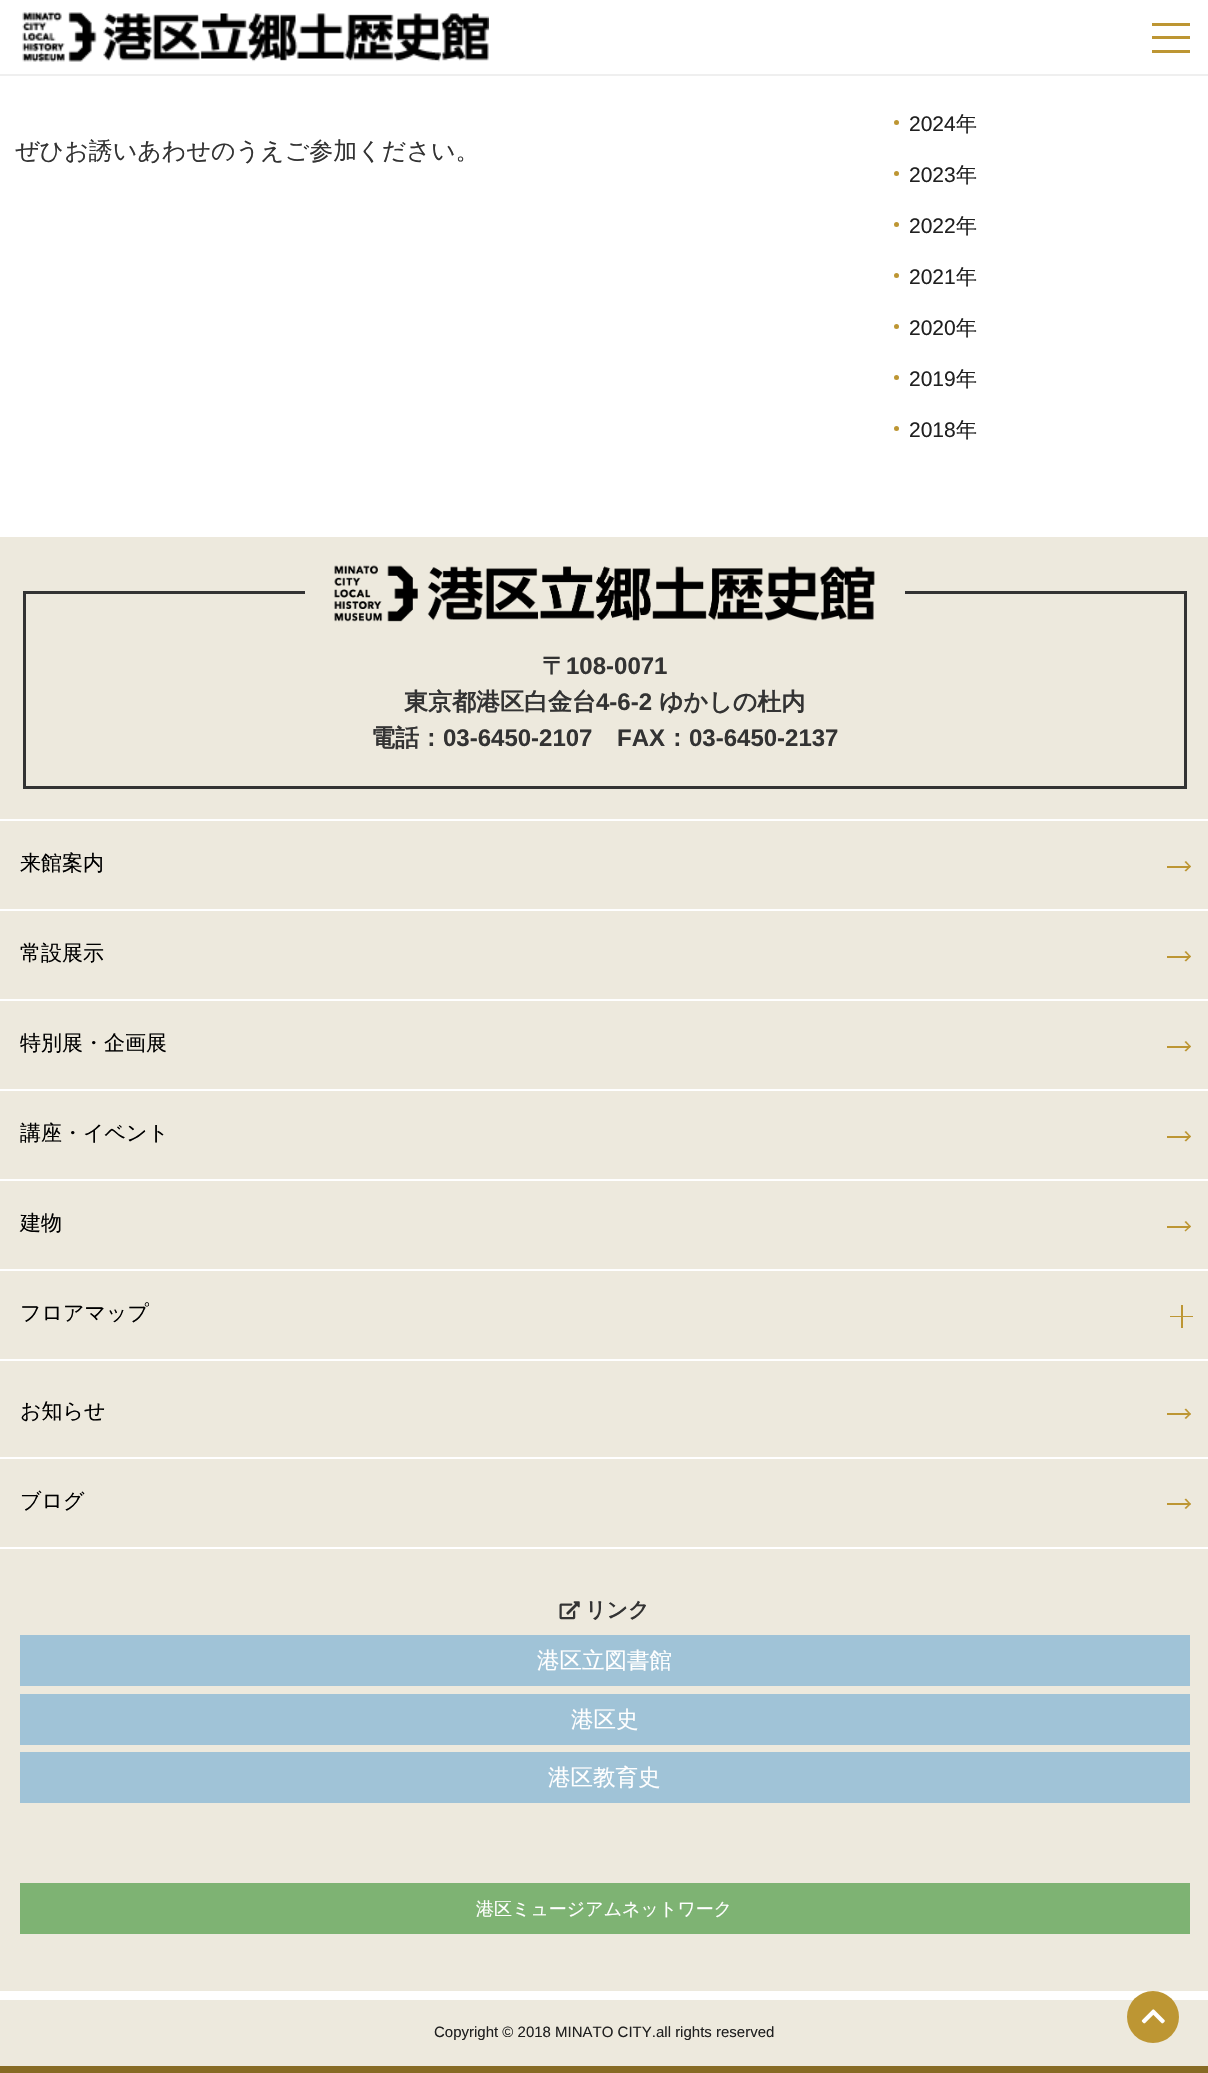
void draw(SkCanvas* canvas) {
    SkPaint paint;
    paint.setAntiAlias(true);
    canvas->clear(0xFFFFFFFF);
    paint.setColor(0xFFEFEFEF);
    canvas->drawRect(SkRect::MakeXYWH(0, 74, 1208, 2), paint);
    canvas->drawImageRect(SkImages::DeferredFromEncodedData(SkData::MakeFromFileName("img1.png")), SkRect::MakeXYWH(22, 12, 467, 50), SkSamplingOptions());
    paint.setColor(0xFFBD9633);
    canvas->drawRect(SkRect::MakeXYWH(1152, 23, 38, 3), paint);
    canvas->drawRect(SkRect::MakeXYWH(1152, 50, 38, 3), paint);
    canvas->drawRect(SkRect::MakeXYWH(1152, 36, 38, 3), paint);
    SkFont font1(fontMgr->matchFamilyStyle("WenQuanYi Zen Hei", SkFontStyle(500, SkFontStyle::kNormal_Width, SkFontStyle::kUpright_Slant)), 24);
    font1.setSubpixel(true);
    paint.setColor(0xFF333333);
    canvas->drawString("ぜひお誘いあわせのうえご参加ください。", 15, 159, font1, paint);
    paint.setColor(0xFFBD9633);
    canvas->drawCircle(896.5f, 122.5f, 2.5f, paint);
    SkFont font2(fontMgr->matchFamilyStyle("Liberation Sans", SkFontStyle::Normal()), 21);
    font2.setSubpixel(true);
    paint.setColor(0xFF202020);
    canvas->drawString("2024", 909, 131, font2, paint);
    SkFont font3(fontMgr->matchFamilyStyle("WenQuanYi Zen Hei", SkFontStyle(500, SkFontStyle::kNormal_Width, SkFontStyle::kUpright_Slant)), 21);
    font3.setSubpixel(true);
    canvas->drawString("年", 956, 131, font3, paint);
    paint.setColor(0xFFBD9633);
    canvas->drawCircle(896.5f, 173.5f, 2.5f, paint);
    paint.setColor(0xFF202020);
    canvas->drawString("2023", 909, 182, font2, paint);
    canvas->drawString("年", 956, 182, font3, paint);
    paint.setColor(0xFFBD9633);
    canvas->drawCircle(896.5f, 224.5f, 2.5f, paint);
    paint.setColor(0xFF202020);
    canvas->drawString("2022", 909, 233, font2, paint);
    canvas->drawString("年", 956, 233, font3, paint);
    paint.setColor(0xFFBD9633);
    canvas->drawCircle(896.5f, 275.5f, 2.5f, paint);
    paint.setColor(0xFF202020);
    canvas->drawString("2021", 909, 284, font2, paint);
    canvas->drawString("年", 956, 284, font3, paint);
    paint.setColor(0xFFBD9633);
    canvas->drawCircle(896.5f, 326.5f, 2.5f, paint);
    paint.setColor(0xFF202020);
    canvas->drawString("2020", 909, 335, font2, paint);
    canvas->drawString("年", 956, 335, font3, paint);
    paint.setColor(0xFFBD9633);
    canvas->drawCircle(896.5f, 377.5f, 2.5f, paint);
    paint.setColor(0xFF202020);
    canvas->drawString("2019", 909, 386, font2, paint);
    canvas->drawString("年", 956, 386, font3, paint);
    paint.setColor(0xFFBD9633);
    canvas->drawCircle(896.5f, 428.5f, 2.5f, paint);
    paint.setColor(0xFF202020);
    canvas->drawString("2018", 909, 437, font2, paint);
    canvas->drawString("年", 956, 437, font3, paint);
    paint.setColor(0xFFEDE9DD);
    canvas->drawRect(SkRect::MakeXYWH(0, 537, 1208, 1529), paint);
    paint.setStyle(SkPaint::kStroke_Style);
    paint.setStrokeWidth(3);
    paint.setColor(0xFF333333);
    canvas->drawRect(SkRect::MakeXYWH(24.5f, 592.5f, 1161, 195), paint);
    paint.setStyle(SkPaint::kFill_Style);
    paint.setColor(0xFFEDE9DD);
    canvas->drawRect(SkRect::MakeXYWH(305, 591, 600, 3), paint);
    canvas->drawImageRect(SkImages::DeferredFromEncodedData(SkData::MakeFromFileName("img2.png")), SkRect::MakeXYWH(334, 565, 541, 57), SkSamplingOptions());
    SkFont font4(fontMgr->matchFamilyStyle("WenQuanYi Zen Hei", SkFontStyle::Bold()), 24);
    font4.setSubpixel(true);
    paint.setColor(0xFF333333);
    canvas->drawString("〒", 542, 674, font4, paint);
    SkFont font5(fontMgr->matchFamilyStyle("Liberation Sans", SkFontStyle::Bold()), 24);
    font5.setSubpixel(true);
    canvas->drawString("108-0071", 566, 674, font5, paint);
    canvas->drawString("東京都港区白金台", 404, 710, font4, paint);
    canvas->drawString("4-6-2", 596, 710, font5, paint);
    canvas->drawString("ゆかしの杜内", 659, 710, font4, paint);
    canvas->drawString("電話：", 371, 746, font4, paint);
    canvas->drawString("03-6450-2107", 443, 746, font5, paint);
    canvas->drawString("FAX", 617, 746, font5, paint);
    canvas->drawString("：", 665, 746, font4, paint);
    canvas->drawString("03-6450-2137", 689, 746, font5, paint);
    paint.setColor(0xFFFFFFFF);
    canvas->drawRect(SkRect::MakeXYWH(0, 1991, 1208, 9), paint);
    canvas->drawRect(SkRect::MakeXYWH(0, 819, 1208, 2), paint);
    canvas->drawRect(SkRect::MakeXYWH(0, 909, 1208, 2), paint);
    paint.setColor(0xFF000000);
    canvas->drawString("来館案内", 20, 870, font3, paint);
    paint.setColor(0xFFBD9633);
    canvas->drawRect(SkRect::MakeXYWH(1167, 866, 23, 2), paint);
    canvas->drawPath(SkPathBuilder().moveTo(1186, 861).lineTo(1191, 866.5f).lineTo(1190, 867.5f).lineTo(1184.5f, 862).close().detach(), paint);
    canvas->drawPath(SkPathBuilder().moveTo(1190, 865.5f).lineTo(1191, 866.5f).lineTo(1186, 871.5f).lineTo(1184.5f, 870.5f).close().detach(), paint);
    paint.setColor(0xFFFFFFFF);
    canvas->drawRect(SkRect::MakeXYWH(0, 999, 1208, 2), paint);
    paint.setColor(0xFF000000);
    canvas->drawString("常設展示", 20, 960, font3, paint);
    paint.setColor(0xFFBD9633);
    canvas->drawRect(SkRect::MakeXYWH(1167, 956, 23, 2), paint);
    canvas->drawPath(SkPathBuilder().moveTo(1186, 951).lineTo(1191, 956.5f).lineTo(1190, 957.5f).lineTo(1184.5f, 952).close().detach(), paint);
    canvas->drawPath(SkPathBuilder().moveTo(1190, 955.5f).lineTo(1191, 956.5f).lineTo(1186, 961.5f).lineTo(1184.5f, 960.5f).close().detach(), paint);
    paint.setColor(0xFFFFFFFF);
    canvas->drawRect(SkRect::MakeXYWH(0, 1089, 1208, 2), paint);
    paint.setColor(0xFF000000);
    canvas->drawString("特別展・企画展", 20, 1050, font3, paint);
    paint.setColor(0xFFBD9633);
    canvas->drawRect(SkRect::MakeXYWH(1167, 1046, 23, 2), paint);
    canvas->drawPath(SkPathBuilder().moveTo(1186, 1041).lineTo(1191, 1046.5f).lineTo(1190, 1047.5f).lineTo(1184.5f, 1042).close().detach(), paint);
    canvas->drawPath(SkPathBuilder().moveTo(1190, 1045.5f).lineTo(1191, 1046.5f).lineTo(1186, 1051.5f).lineTo(1184.5f, 1050.5f).close().detach(), paint);
    paint.setColor(0xFFFFFFFF);
    canvas->drawRect(SkRect::MakeXYWH(0, 1179, 1208, 2), paint);
    paint.setColor(0xFF000000);
    canvas->drawString("講座・イベント", 20, 1140, font3, paint);
    paint.setColor(0xFFBD9633);
    canvas->drawRect(SkRect::MakeXYWH(1167, 1136, 23, 2), paint);
    canvas->drawPath(SkPathBuilder().moveTo(1186, 1131).lineTo(1191, 1136.5f).lineTo(1190, 1137.5f).lineTo(1184.5f, 1132).close().detach(), paint);
    canvas->drawPath(SkPathBuilder().moveTo(1190, 1135.5f).lineTo(1191, 1136.5f).lineTo(1186, 1141.5f).lineTo(1184.5f, 1140.5f).close().detach(), paint);
    paint.setColor(0xFFFFFFFF);
    canvas->drawRect(SkRect::MakeXYWH(0, 1269, 1208, 2), paint);
    paint.setColor(0xFF000000);
    canvas->drawString("建物", 20, 1230, font3, paint);
    paint.setColor(0xFFBD9633);
    canvas->drawRect(SkRect::MakeXYWH(1167, 1226, 23, 2), paint);
    canvas->drawPath(SkPathBuilder().moveTo(1186, 1221).lineTo(1191, 1226.5f).lineTo(1190, 1227.5f).lineTo(1184.5f, 1222).close().detach(), paint);
    canvas->drawPath(SkPathBuilder().moveTo(1190, 1225.5f).lineTo(1191, 1226.5f).lineTo(1185.5f, 1231.5f).lineTo(1184.5f, 1230.5f).close().detach(), paint);
    paint.setColor(0xFFFFFFFF);
    canvas->drawRect(SkRect::MakeXYWH(0, 1359, 1208, 2), paint);
    paint.setColor(0xFF000000);
    canvas->drawString("フロアマップ", 20, 1320, font3, paint);
    paint.setColor(0xFFBD9633);
    canvas->drawRect(SkRect::MakeXYWH(1181, 1305, 2, 23), paint);
    canvas->drawRect(SkRect::MakeXYWH(1170, 1316, 23, 1), paint);
    paint.setColor(0xFFFFFFFF);
    canvas->drawRect(SkRect::MakeXYWH(0, 1457, 1208, 2), paint);
    paint.setColor(0xFF000000);
    canvas->drawString("お知らせ", 20, 1418, font3, paint);
    paint.setColor(0xFFBD9633);
    canvas->drawRect(SkRect::MakeXYWH(1167, 1413, 23, 2), paint);
    canvas->drawPath(SkPathBuilder().moveTo(1186, 1408.5f).lineTo(1191, 1414).lineTo(1190, 1415).lineTo(1184.5f, 1409.5f).close().detach(), paint);
    canvas->drawPath(SkPathBuilder().moveTo(1190, 1413).lineTo(1191, 1414).lineTo(1186, 1419).lineTo(1184.5f, 1418).close().detach(), paint);
    paint.setColor(0xFFFFFFFF);
    canvas->drawRect(SkRect::MakeXYWH(0, 1547, 1208, 2), paint);
    paint.setColor(0xFF000000);
    canvas->drawString("ブログ", 20, 1508, font3, paint);
    paint.setColor(0xFFBD9633);
    canvas->drawRect(SkRect::MakeXYWH(1167, 1503, 23, 2), paint);
    canvas->drawPath(SkPathBuilder().moveTo(1186, 1498.5f).lineTo(1191, 1504).lineTo(1190, 1505).lineTo(1184.5f, 1499.5f).close().detach(), paint);
    canvas->drawPath(SkPathBuilder().moveTo(1190, 1503).lineTo(1191, 1504).lineTo(1186, 1509).lineTo(1184.5f, 1508).close().detach(), paint);
    canvas->drawImageRect(SkImages::DeferredFromEncodedData(SkData::MakeFromFileName("img3.png")), SkRect::MakeXYWH(559, 1601, 21, 19), SkSamplingOptions());
    SkFont font6(fontMgr->matchFamilyStyle("WenQuanYi Zen Hei", SkFontStyle::Bold()), 21);
    font6.setSubpixel(true);
    paint.setColor(0xFF333333);
    canvas->drawString("リンク", 585, 1617, font6, paint);
    paint.setColor(0xFFA0C3D7);
    canvas->drawRect(SkRect::MakeXYWH(20, 1635, 1170, 51), paint);
    SkFont font7(fontMgr->matchFamilyStyle("WenQuanYi Zen Hei", SkFontStyle(500, SkFontStyle::kNormal_Width, SkFontStyle::kUpright_Slant)), 22.5f);
    font7.setSubpixel(true);
    paint.setColor(0xFFFFFFFF);
    canvas->drawString("港区立図書館", 537, 1668, font7, paint);
    paint.setColor(0xFFA0C3D7);
    canvas->drawRect(SkRect::MakeXYWH(20, 1694, 1170, 51), paint);
    paint.setColor(0xFFFFFFFF);
    canvas->drawString("港区史", 571, 1727, font7, paint);
    paint.setColor(0xFFA0C3D7);
    canvas->drawRect(SkRect::MakeXYWH(20, 1752, 1170, 51), paint);
    paint.setColor(0xFFFFFFFF);
    canvas->drawString("港区教育史", 548, 1785, font7, paint);
    paint.setColor(0xFF7EB373);
    canvas->drawRect(SkRect::MakeXYWH(20, 1883, 1170, 51), paint);
    SkFont font8(fontMgr->matchFamilyStyle("WenQuanYi Zen Hei", SkFontStyle(500, SkFontStyle::kNormal_Width, SkFontStyle::kUpright_Slant)), 18);
    font8.setSubpixel(true);
    paint.setColor(0xFFFFFFFF);
    canvas->drawString("港区ミュージアムネットワーク", 476, 1915, font8, paint);
    paint.setColor(0xFF876B24);
    canvas->drawRect(SkRect::MakeXYWH(0, 2066, 1208, 7), paint);
    SkFont font9(fontMgr->matchFamilyStyle("Liberation Sans", SkFontStyle::Normal()), 15);
    font9.setSubpixel(true);
    paint.setColor(0xFF202020);
    canvas->drawString("Copyright © 2018 MINATO CITY.all rights reserved", 434, 2037, font9, paint);
    paint.setColor(0xFFBD9633);
    canvas->drawCircle(1153, 2017, 26, paint);
    canvas->drawImageRect(SkImages::DeferredFromEncodedData(SkData::MakeFromFileName("img4.png")), SkRect::MakeXYWH(1141, 2009, 24, 15), SkSamplingOptions());
}
